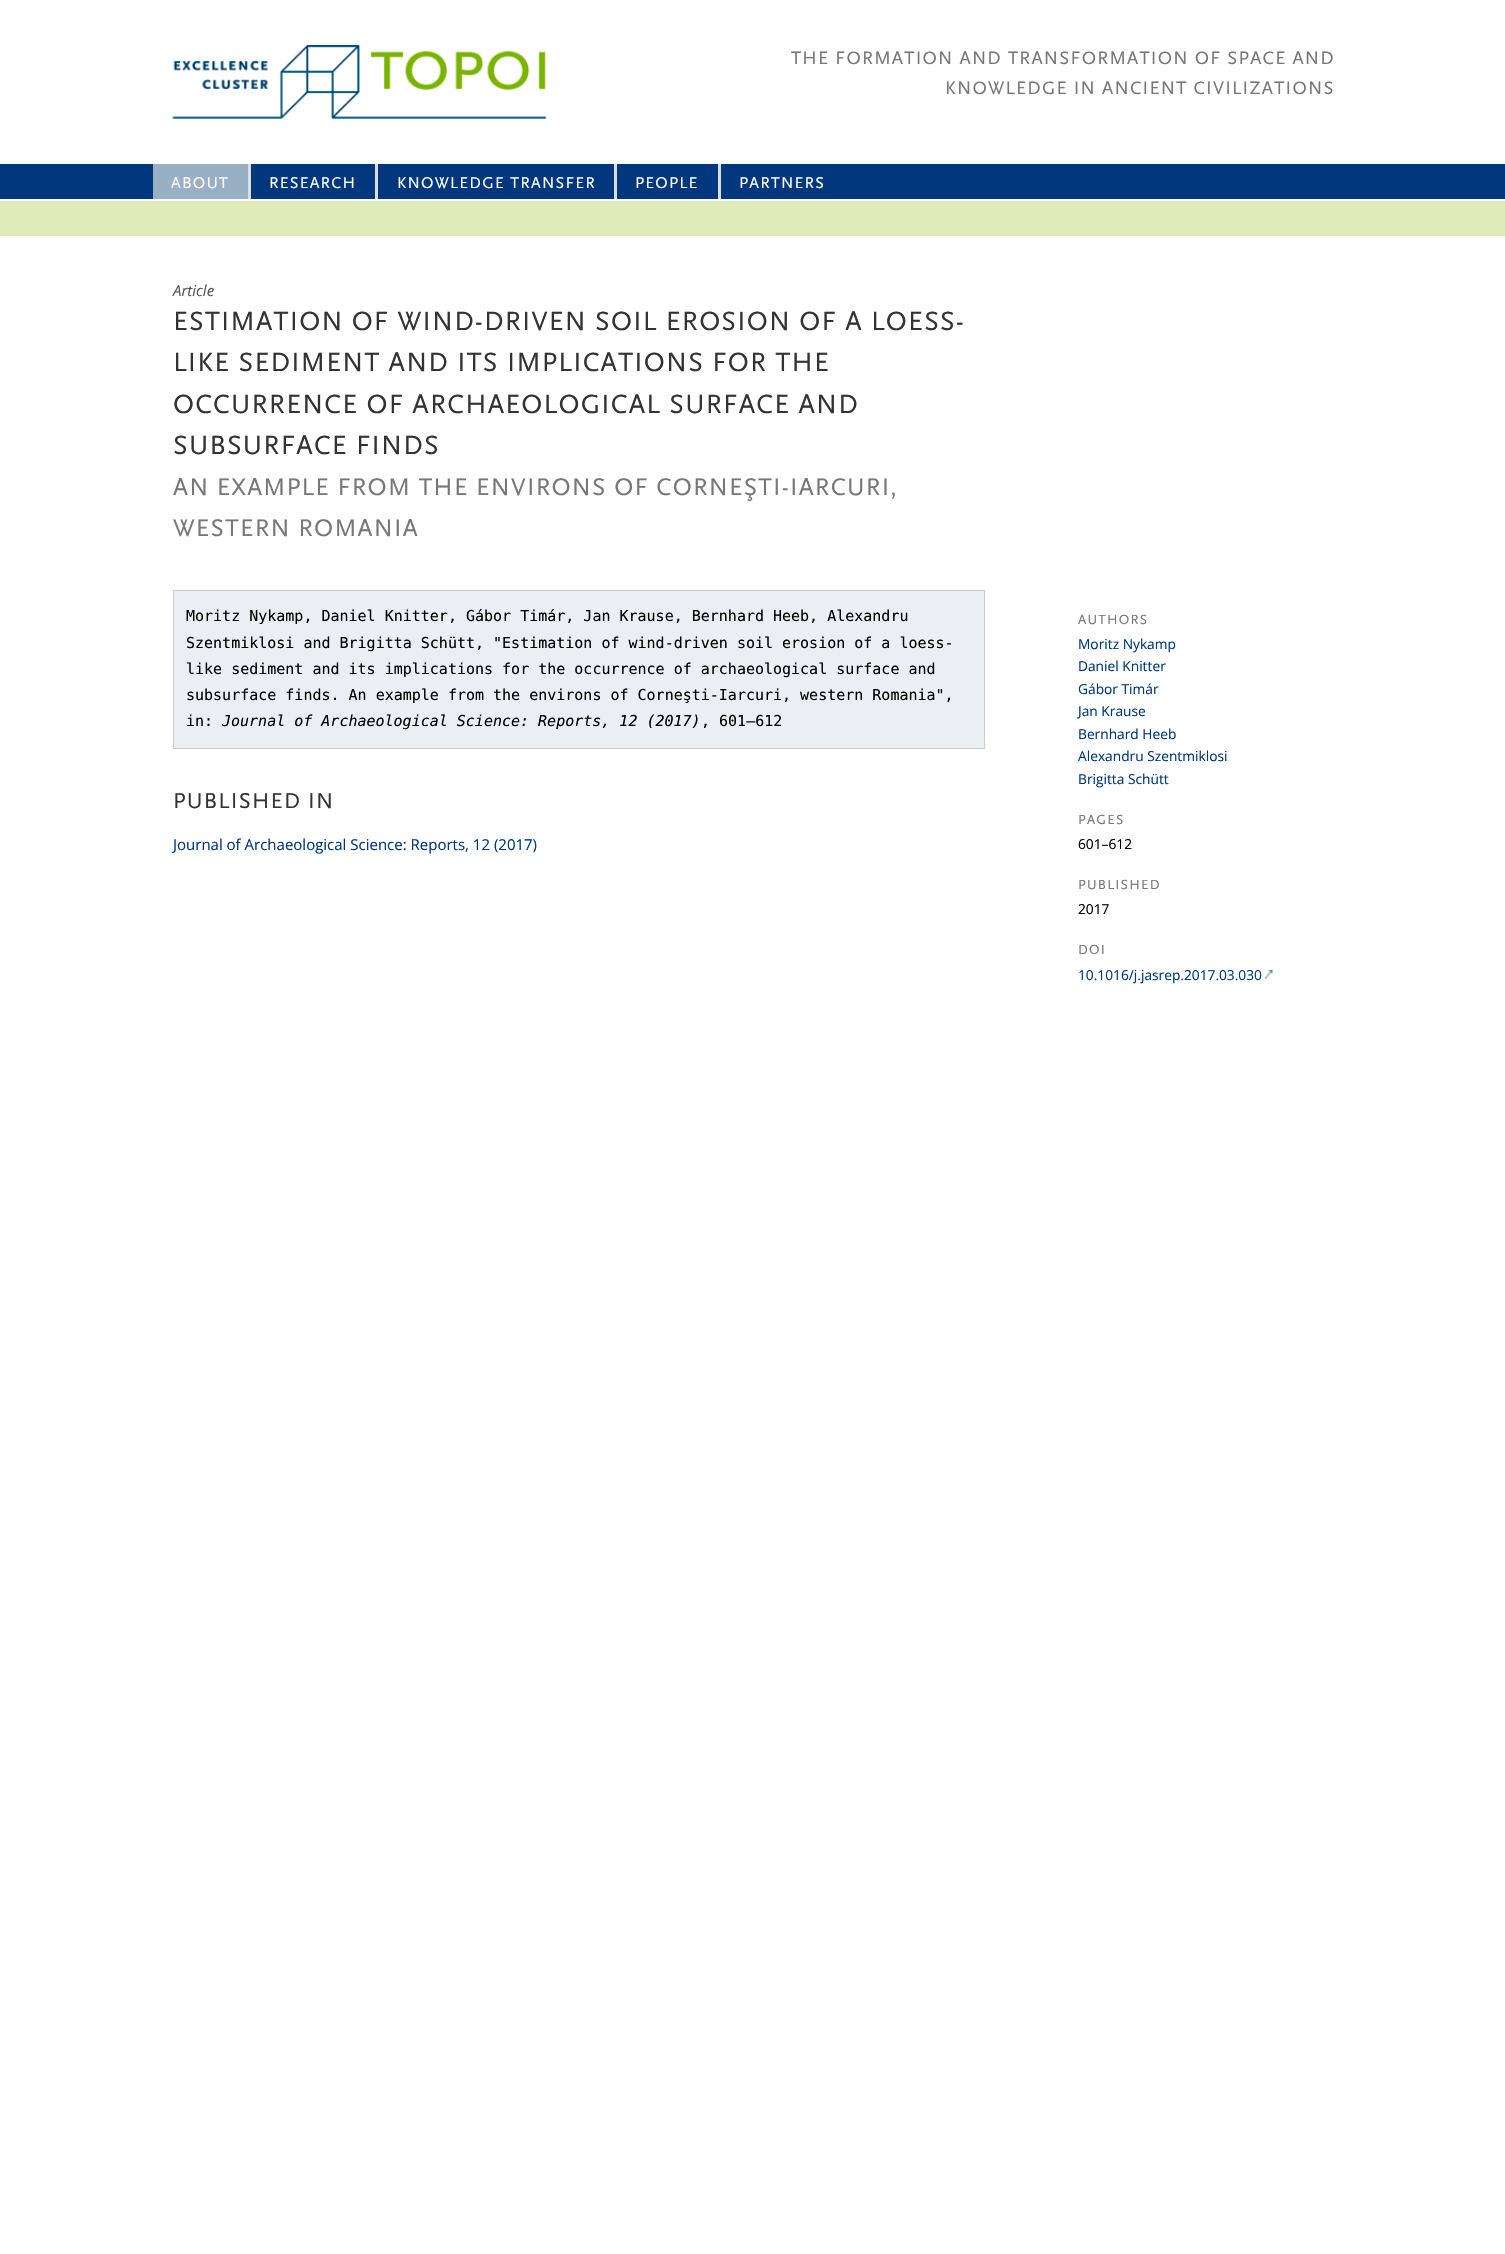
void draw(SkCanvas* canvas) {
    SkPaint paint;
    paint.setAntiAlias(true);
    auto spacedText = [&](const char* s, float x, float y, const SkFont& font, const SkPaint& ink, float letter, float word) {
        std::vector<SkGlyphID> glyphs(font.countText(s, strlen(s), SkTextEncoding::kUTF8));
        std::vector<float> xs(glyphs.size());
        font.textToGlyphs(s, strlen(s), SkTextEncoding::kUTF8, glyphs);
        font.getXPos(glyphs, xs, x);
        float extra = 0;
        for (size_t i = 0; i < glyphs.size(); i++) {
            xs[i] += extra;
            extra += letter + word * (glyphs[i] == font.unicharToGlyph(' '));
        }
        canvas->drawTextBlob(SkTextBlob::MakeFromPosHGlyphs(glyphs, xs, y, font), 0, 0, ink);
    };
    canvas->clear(0xFFFFFFFF);
    canvas->drawImageRect(SkImages::DeferredFromEncodedData(SkData::MakeFromFileName("img1.png")), SkRect::MakeXYWH(172, 45, 375, 74), SkSamplingOptions());
    SkFont font1(fontMgr->matchFamilyStyle("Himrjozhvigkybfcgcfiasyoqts", SkFontStyle::Normal()), 18.75f);
    font1.setSubpixel(true);
    paint.setColor(0xFF777777);
    spacedText("THE FORMATION AND TRANSFORMATION OF SPACE AND", 791, 64, font1, paint, 1.25f, 0);
    spacedText("KNOWLEDGE IN ANCIENT CIVILIZATIONS", 945, 94, font1, paint, 1.25f, 0);
    paint.setColor(0xFF00377D);
    canvas->drawRect(SkRect::MakeXYWH(0, 164, 1505, 35), paint);
    paint.setColor(0xFF99AFC4);
    canvas->drawRect(SkRect::MakeXYWH(153, 164, 95, 35), paint);
    SkFont font2(fontMgr->matchFamilyStyle("Himrjozhvigkybfcgcfiasyoqts", SkFontStyle::Normal()), 16.25f);
    font2.setSubpixel(true);
    paint.setColor(0xFFFFFFFF);
    spacedText("ABOUT", 171, 188, font2, paint, 1.25f, 0);
    paint.setColor(0xFFDDDDDD);
    canvas->drawRect(SkRect::MakeXYWH(248, 164, 3, 35), paint);
    paint.setColor(0xFFFFFFFF);
    spacedText("RESEARCH", 269, 188, font2, paint, 1.25f, 0);
    paint.setColor(0xFFDDDDDD);
    canvas->drawRect(SkRect::MakeXYWH(375, 164, 3, 35), paint);
    paint.setColor(0xFFFFFFFF);
    spacedText("KNOWLEDGE TRANSFER", 397, 188, font2, paint, 1.25f, 0);
    paint.setColor(0xFFDDDDDD);
    canvas->drawRect(SkRect::MakeXYWH(614, 164, 3, 35), paint);
    paint.setColor(0xFFFFFFFF);
    spacedText("PEOPLE", 635, 188, font2, paint, 1.25f, 0);
    paint.setColor(0xFFDDDDDD);
    canvas->drawRect(SkRect::MakeXYWH(718, 164, 3, 35), paint);
    paint.setColor(0xFFFFFFFF);
    spacedText("PARTNERS", 739, 188, font2, paint, 1.25f, 0);
    paint.setColor(0xFFDFECB9);
    canvas->drawRect(SkRect::MakeXYWH(0, 201, 1505, 35), paint);
    SkFont font3(fontMgr->matchFamilyStyle("Open Sans", SkFontStyle::Italic()), 15);
    font3.setSubpixel(true);
    paint.setColor(0xFF555555);
    canvas->drawString("Article", 173, 296, font3, paint);
    SkFont font4(fontMgr->matchFamilyStyle("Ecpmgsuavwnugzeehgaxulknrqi", SkFontStyle::Normal()), 27.5f);
    font4.setSubpixel(true);
    paint.setColor(0xFF333333);
    spacedText("ESTIMATION OF WIND-DRIVEN SOIL EROSION OF A LOESS-", 173, 330, font4, paint, 1.25f, 0);
    spacedText("LIKE SEDIMENT AND ITS IMPLICATIONS FOR THE", 173, 371, font4, paint, 1.25f, 0);
    spacedText("OCCURRENCE OF ARCHAEOLOGICAL SURFACE AND", 173, 413, font4, paint, 1.25f, 0);
    spacedText("SUBSURFACE FINDS", 173, 454, font4, paint, 1.25f, 0);
    SkFont font5(fontMgr->matchFamilyStyle("Ecpmgsuavwnugzeehgaxulknrqi", SkFontStyle::Normal()), 25);
    font5.setSubpixel(true);
    paint.setColor(0xFF777777);
    spacedText("AN EXAMPLE FROM THE ENVIRONS OF CORNEŞTI-IARCURI,", 173, 495, font5, paint, 1.25f, 0);
    spacedText("WESTERN ROMANIA", 173, 536, font5, paint, 1.25f, 0);
    paint.setColor(0xFFEBEEF2);
    canvas->drawRect(SkRect::MakeXYWH(173.5f, 590.5f, 811, 158), paint);
    paint.setStyle(SkPaint::kStroke_Style);
    paint.setStrokeWidth(1);
    paint.setColor(0xFFCCCCCC);
    canvas->drawRect(SkRect::MakeXYWH(173.5f, 590.5f, 811, 158), paint);
    SkFont font6(fontMgr->matchFamilyStyle("DejaVu Sans Mono", SkFontStyle::Normal()), 15);
    font6.setSubpixel(true);
    paint.setStyle(SkPaint::kFill_Style);
    paint.setColor(0xFF000000);
    canvas->drawString("Moritz Nykamp, Daniel Knitter, Gábor Timár, Jan Krause, Bernhard Heeb, Alexandru", 186, 621, font6, paint);
    canvas->drawString("Szentmiklosi and Brigitta Schütt, \"Estimation of wind-driven soil erosion of a loess-", 186, 648, font6, paint);
    canvas->drawString("like sediment and its implications for the occurrence of archaeological surface and", 186, 674, font6, paint);
    canvas->drawString("subsurface finds. An example from the environs of Corneşti-Iarcuri, western Romania\",", 186, 700, font6, paint);
    canvas->drawString("in:", 186, 726, font6, paint);
    SkFont font7(fontMgr->matchFamilyStyle("DejaVu Sans Mono", SkFontStyle::Italic()), 15);
    font7.setSubpixel(true);
    canvas->drawString("Journal of Archaeological Science: Reports, 12 (2017)", 222, 726, font7, paint);
    canvas->drawString(", 601–612", 701, 726, font6, paint);
    SkFont font8(fontMgr->matchFamilyStyle("Ecpmgsuavwnugzeehgaxulknrqi", SkFontStyle::Normal()), 22.5f);
    font8.setSubpixel(true);
    paint.setColor(0xFF333333);
    spacedText("PUBLISHED IN", 173, 808, font8, paint, 1.25f, 0);
    SkFont font9(fontMgr->matchFamilyStyle("Open Sans", SkFontStyle::Normal()), 15);
    font9.setSubpixel(true);
    paint.setColor(0xFF00377D);
    canvas->drawString("Journal of Archaeological Science: Reports, 12 (2017)", 173, 850, font9, paint);
    SkFont font10(fontMgr->matchFamilyStyle("Ecpmgsuavwnugzeehgaxulknrqi", SkFontStyle::Normal()), 13.75f);
    font10.setSubpixel(true);
    paint.setColor(0xFF777777);
    spacedText("AUTHORS", 1078, 624, font10, paint, 1.25f, 0);
    SkFont font11(fontMgr->matchFamilyStyle("Open Sans", SkFontStyle::Normal()), 13.75f);
    font11.setSubpixel(true);
    paint.setColor(0xFF00377D);
    canvas->drawString("Moritz Nykamp", 1078, 649, font11, paint);
    canvas->drawString("Daniel Knitter", 1078, 671, font11, paint);
    canvas->drawString("Gábor Timár", 1078, 694, font11, paint);
    canvas->drawString("Jan Krause", 1078, 716, font11, paint);
    canvas->drawString("Bernhard Heeb", 1078, 739, font11, paint);
    canvas->drawString("Alexandru Szentmiklosi", 1078, 761, font11, paint);
    canvas->drawString("Brigitta Schütt", 1078, 784, font11, paint);
    paint.setColor(0xFF777777);
    spacedText("PAGES", 1078, 824, font10, paint, 1.25f, 0);
    paint.setColor(0xFF000000);
    canvas->drawString("601–612", 1078, 849, font11, paint);
    paint.setColor(0xFF777777);
    spacedText("PUBLISHED", 1078, 889, font10, paint, 1.25f, 0);
    paint.setColor(0xFF000000);
    canvas->drawString("2017", 1078, 914, font11, paint);
    paint.setColor(0xFF777777);
    spacedText("DOI", 1078, 954, font10, paint, 1.25f, 0);
    paint.setColor(0xFF00377D);
    canvas->drawString("10.1016/j.jasrep.2017.03.030", 1078, 980, font11, paint);
    canvas->drawImageRect(SkImages::DeferredFromEncodedData(SkData::MakeFromFileName("img2.png")), SkRect::MakeXYWH(1265, 970, 8, 9), SkSamplingOptions());
}
